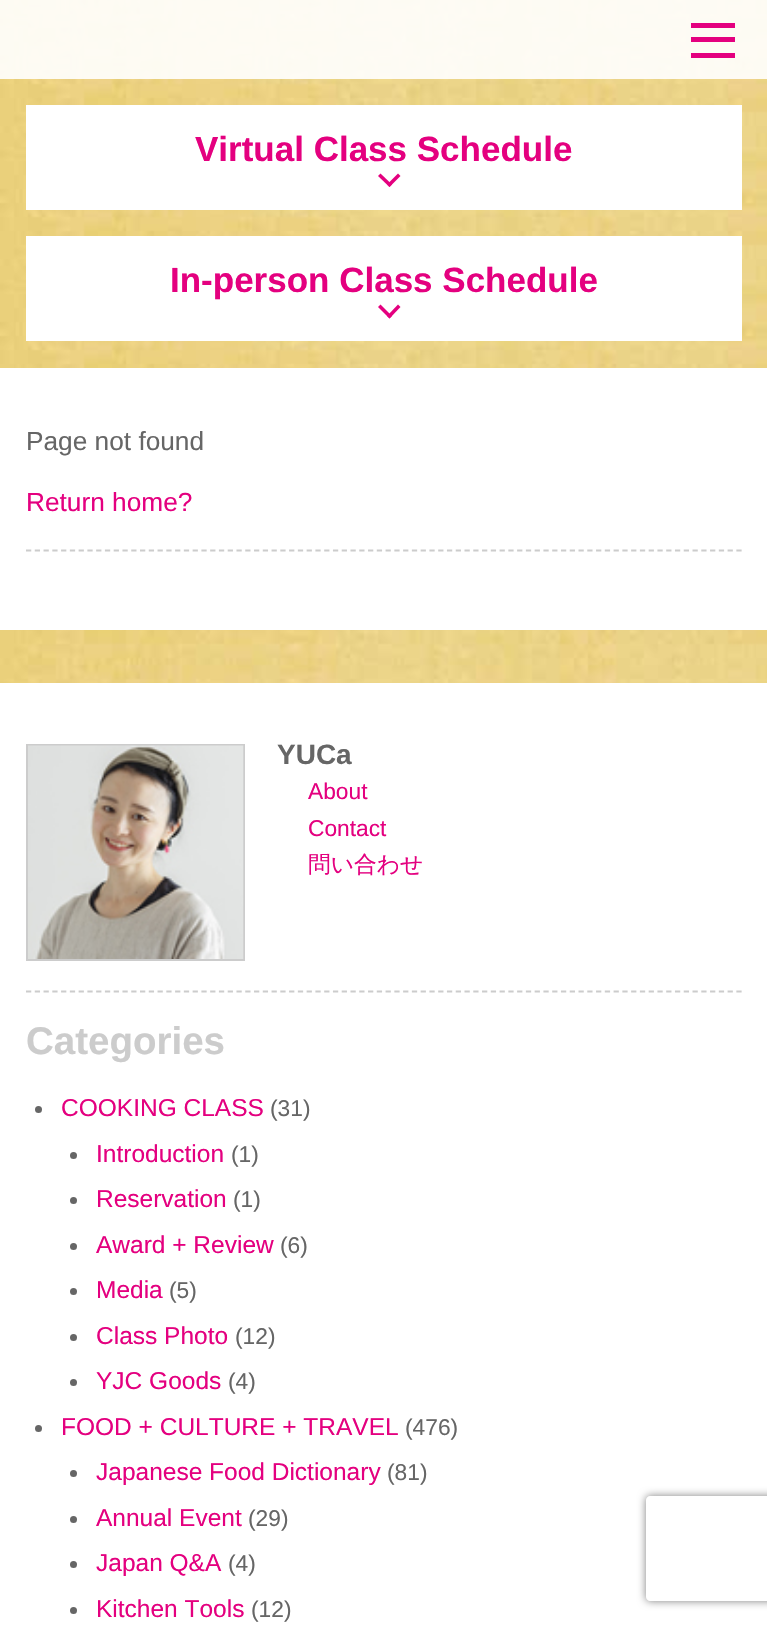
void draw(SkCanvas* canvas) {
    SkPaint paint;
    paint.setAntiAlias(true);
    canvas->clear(0xFFFFFFFF);
    canvas->drawImageRect(SkImages::DeferredFromEncodedData(SkData::MakeFromFileName("img1.png")), SkRect::MakeXYWH(0, 0, 767, 683), SkSamplingOptions());
    paint.setColor(0xE6FFFFFF);
    canvas->drawRect(SkRect::MakeXYWH(0, 0, 767, 79), paint);
    paint.setColor(0xFFE4007F);
    canvas->drawRect(SkRect::MakeXYWH(691, 37, 44, 5), paint);
    canvas->drawRect(SkRect::MakeXYWH(691, 23, 44, 5), paint);
    canvas->drawRect(SkRect::MakeXYWH(691, 53, 44, 5), paint);
    paint.setColor(0xFFFFFFFF);
    canvas->drawRect(SkRect::MakeXYWH(26, 105, 716, 105), paint);
    SkFont font1(fontMgr->matchFamilyStyle("Liberation Sans", SkFontStyle::Bold()), 35);
    font1.setSubpixel(true);
    paint.setColor(0xFFE4007F);
    canvas->drawString("Virtual Class Schedule", 195, 161, font1, paint);
    canvas->drawPath(SkPathBuilder().moveTo(400.5f, 176).lineTo(389.5f, 187).lineTo(387, 184.5f).lineTo(398, 173.5f).close().detach(), paint);
    canvas->drawPath(SkPathBuilder().moveTo(392, 184.5f).lineTo(389.5f, 187).lineTo(378, 176).lineTo(380.5f, 173.5f).close().detach(), paint);
    paint.setColor(0xFFFFFFFF);
    canvas->drawRect(SkRect::MakeXYWH(26, 236, 716, 105), paint);
    paint.setColor(0xFFE4007F);
    canvas->drawString("In-person Class Schedule", 170, 292, font1, paint);
    canvas->drawPath(SkPathBuilder().moveTo(400.5f, 307).lineTo(389.5f, 318.5f).lineTo(387, 316).lineTo(398, 304.5f).close().detach(), paint);
    canvas->drawPath(SkPathBuilder().moveTo(392, 316).lineTo(389.5f, 318.5f).lineTo(378, 307).lineTo(380.5f, 304.5f).close().detach(), paint);
    paint.setColor(0xFFFFFFFF);
    canvas->drawRect(SkRect::MakeXYWH(0, 368, 767, 262), paint);
    paint.setStyle(SkPaint::kStroke_Style);
    paint.setStrokeWidth(1.8f);
    paint.setColor(0xFFCCCCCC);
    paint.setPathEffect(SkDashPathEffect::Make({{5.25f, 3.52f}}, 0));
    canvas->drawPath(SkPathBuilder().moveTo(26, 550.5f).lineTo(742, 550.5f).detach(), paint);
    paint.setPathEffect(nullptr);
    SkFont font2(fontMgr->matchFamilyStyle("Liberation Sans", SkFontStyle::Normal()), 26.25f);
    font2.setSubpixel(true);
    paint.setStyle(SkPaint::kFill_Style);
    paint.setColor(0xFF666666);
    canvas->drawString("Page not found", 26, 450, font2, paint);
    paint.setColor(0xFFE4007F);
    canvas->drawString("Return home?", 26, 511, font2, paint);
    paint.setStyle(SkPaint::kStroke_Style);
    paint.setColor(0xFFCCCCCC);
    paint.setPathEffect(SkDashPathEffect::Make({{5.25f, 3.52f}}, 0));
    canvas->drawPath(SkPathBuilder().moveTo(26, 991.5f).lineTo(742, 991.5f).detach(), paint);
    paint.setPathEffect(nullptr);
    paint.setStrokeWidth(2);
    canvas->drawRect(SkRect::MakeXYWH(27, 745, 217, 215), paint);
    canvas->drawImageRect(SkImages::DeferredFromEncodedData(SkData::MakeFromFileName("img2.png")), SkRect::MakeXYWH(28, 745, 216, 214), SkSamplingOptions());
    SkFont font3(fontMgr->matchFamilyStyle("Liberation Sans", SkFontStyle::Bold()), 28);
    font3.setSubpixel(true);
    paint.setStyle(SkPaint::kFill_Style);
    paint.setColor(0xFF666666);
    canvas->drawString("YUCa", 277, 764, font3, paint);
    SkFont font4(fontMgr->matchFamilyStyle("Liberation Sans", SkFontStyle::Normal()), 22.75f);
    font4.setSubpixel(true);
    paint.setColor(0xFFE4007F);
    canvas->drawString("About", 308, 799, font4, paint);
    canvas->drawString("Contact", 308, 836, font4, paint);
    SkFont font5(fontMgr->matchFamilyStyle("WenQuanYi Zen Hei", SkFontStyle(500, SkFontStyle::kNormal_Width, SkFontStyle::kUpright_Slant)), 22.75f);
    font5.setSubpixel(true);
    canvas->drawString("問い合わせ", 308, 872, font5, paint);
    SkFont font6(fontMgr->matchFamilyStyle("Liberation Sans", SkFontStyle::Bold()), 38.5f);
    font6.setSubpixel(true);
    paint.setColor(0xFFCCCCCC);
    canvas->drawString("Categories", 26, 1054, font6, paint);
    paint.setColor(0xFF666666);
    canvas->drawCircle(38.5f, 1109.5f, 3.5f, paint);
    SkFont font7(fontMgr->matchFamilyStyle("Liberation Sans", SkFontStyle::Normal()), 24.5f);
    font7.setSubpixel(true);
    paint.setColor(0xFFE4007F);
    canvas->drawString("COOKING CLASS", 61, 1116, font7, paint);
    paint.setColor(0xFF666666);
    canvas->drawString("(31)", 270, 1116, font4, paint);
    canvas->drawCircle(73.5f, 1155.5f, 3.5f, paint);
    paint.setColor(0xFFE4007F);
    canvas->drawString("Introduction", 96, 1162, font7, paint);
    paint.setColor(0xFF666666);
    canvas->drawString("(1)", 231, 1162, font4, paint);
    canvas->drawCircle(73.5f, 1200.5f, 3.5f, paint);
    paint.setColor(0xFFE4007F);
    canvas->drawString("Reservation", 96, 1207, font7, paint);
    paint.setColor(0xFF666666);
    canvas->drawString("(1)", 233, 1207, font4, paint);
    canvas->drawCircle(73.5f, 1246.5f, 3.5f, paint);
    paint.setColor(0xFFE4007F);
    canvas->drawString("Award + Review", 96, 1253, font7, paint);
    paint.setColor(0xFF666666);
    canvas->drawString("(6)", 280, 1253, font4, paint);
    canvas->drawCircle(73.5f, 1291.5f, 3.5f, paint);
    paint.setColor(0xFFE4007F);
    canvas->drawString("Media", 96, 1298, font7, paint);
    paint.setColor(0xFF666666);
    canvas->drawString("(5)", 169, 1298, font4, paint);
    canvas->drawCircle(73.5f, 1337.5f, 3.5f, paint);
    paint.setColor(0xFFE4007F);
    canvas->drawString("Class Photo", 96, 1344, font7, paint);
    paint.setColor(0xFF666666);
    canvas->drawString("(12)", 235, 1344, font4, paint);
    canvas->drawCircle(73.5f, 1382.5f, 3.5f, paint);
    paint.setColor(0xFFE4007F);
    canvas->drawString("YJC Goods", 96, 1389, font7, paint);
    paint.setColor(0xFF666666);
    canvas->drawString("(4)", 228, 1389, font4, paint);
    canvas->drawCircle(38.5f, 1428.5f, 3.5f, paint);
    paint.setColor(0xFFE4007F);
    canvas->drawString("FOOD + CULTURE + TRAVEL", 61, 1435, font7, paint);
    paint.setColor(0xFF666666);
    canvas->drawString("(476)", 405, 1435, font4, paint);
    canvas->drawCircle(73.5f, 1473.5f, 3.5f, paint);
    paint.setColor(0xFFE4007F);
    canvas->drawString("Japanese Food Dictionary", 96, 1480, font7, paint);
    paint.setColor(0xFF666666);
    canvas->drawString("(81)", 387, 1480, font4, paint);
    canvas->drawCircle(73.5f, 1519.5f, 3.5f, paint);
    paint.setColor(0xFFE4007F);
    canvas->drawString("Annual Event", 96, 1526, font7, paint);
    paint.setColor(0xFF666666);
    canvas->drawString("(29)", 248, 1526, font4, paint);
    canvas->drawCircle(73.5f, 1564.5f, 3.5f, paint);
    paint.setColor(0xFFE4007F);
    canvas->drawString("Japan Q&A", 96, 1571, font7, paint);
    paint.setColor(0xFF666666);
    canvas->drawString("(4)", 228, 1571, font4, paint);
    canvas->drawCircle(73.5f, 1610.5f, 3.5f, paint);
    paint.setColor(0xFFE4007F);
    canvas->drawString("Kitchen Tools", 96, 1617, font7, paint);
    paint.setColor(0xFF666666);
    canvas->drawString("(12)", 251, 1617, font4, paint);
    canvas->save();
    canvas->clipPath(SkPathBuilder(SkPathFillType::kEvenOdd).moveTo(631, 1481).lineTo(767, 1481).lineTo(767, 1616).lineTo(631, 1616).close().moveTo(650, 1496).lineTo(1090, 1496).cubicTo(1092, 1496, 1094, 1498, 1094, 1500).lineTo(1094, 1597).cubicTo(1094, 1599, 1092, 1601, 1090, 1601).lineTo(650, 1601).cubicTo(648, 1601, 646, 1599, 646, 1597).lineTo(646, 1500).cubicTo(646, 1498, 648, 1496, 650, 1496).close().detach(), true);
    paint.setColor(0xFF808080);
    paint.setMaskFilter(SkMaskFilter::MakeBlur(kNormal_SkBlurStyle, 4.5f));
    canvas->drawRoundRect(SkRect::MakeXYWH(646, 1496, 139, 105), 4, 4, paint);
    paint.setMaskFilter(nullptr);
    canvas->restore();
}
